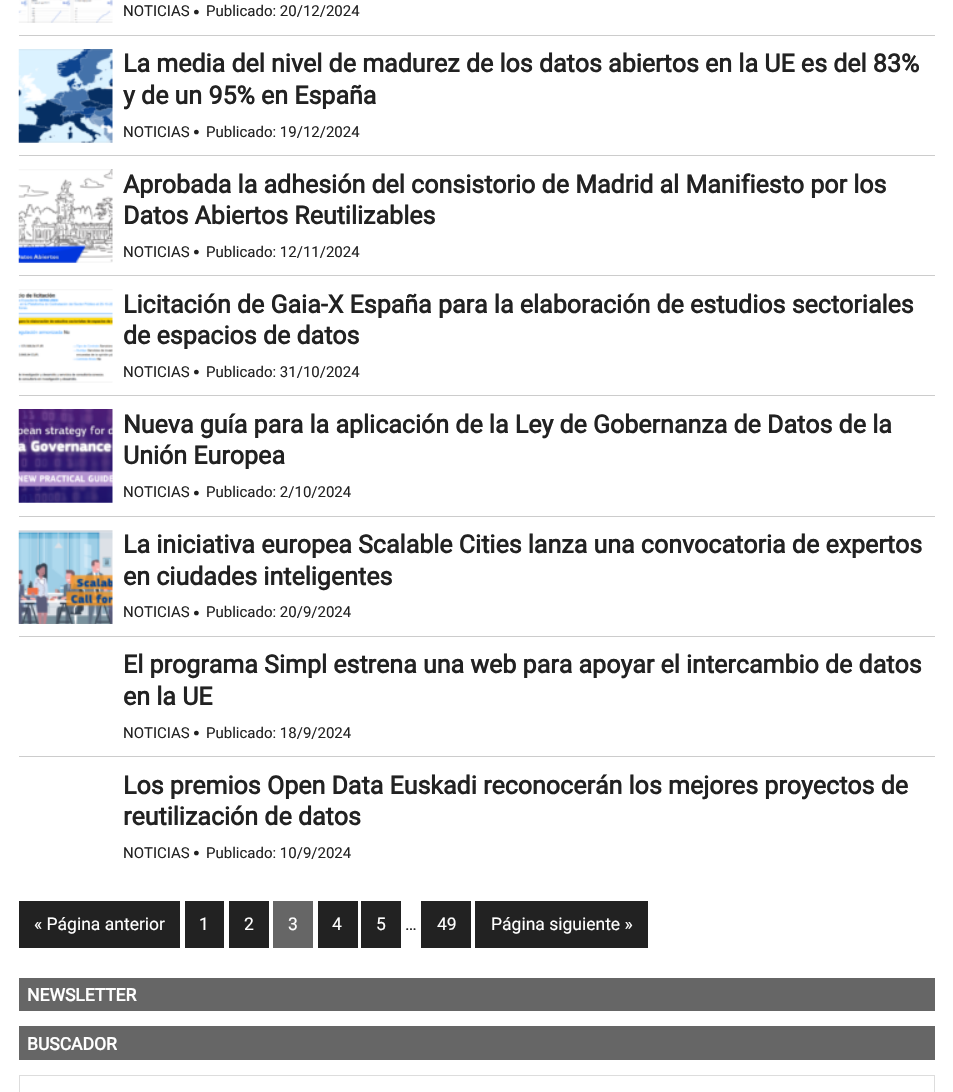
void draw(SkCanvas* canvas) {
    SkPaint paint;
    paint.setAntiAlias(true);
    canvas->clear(0xFFFFFFFF);
    paint.setColor(0xFFCCCCCC);
    canvas->drawRect(SkRect::MakeXYWH(19, 35, 916, 1), paint);
    canvas->drawImageRect(SkImages::DeferredFromEncodedData(SkData::MakeFromFileName("img1.png")), SkRect::MakeXYWH(18, 0, 95, 23), SkSamplingOptions());
    SkFont font1(fontMgr->matchFamilyStyle("Roboto", SkFontStyle::Normal()), 15);
    font1.setSubpixel(true);
    paint.setColor(0xFF222222);
    canvas->drawString("NOTICIAS", 123, 16, font1, paint);
    SkFont font2(fontMgr->matchFamilyStyle("Roboto", SkFontStyle::Normal()), 42);
    font2.setSubpixel(true);
    canvas->drawString("·", 191, 27, font2, paint);
    canvas->drawString("Publicado: 20/12/2024", 206, 16, font1, paint);
    paint.setColor(0xFFCCCCCC);
    canvas->drawRect(SkRect::MakeXYWH(19, 155, 916, 1), paint);
    canvas->drawImageRect(SkImages::DeferredFromEncodedData(SkData::MakeFromFileName("img2.png")), SkRect::MakeXYWH(18, 49, 95, 94), SkSamplingOptions());
    SkFont font3(fontMgr->matchFamilyStyle("Roboto", SkFontStyle::Bold()), 25);
    font3.setSubpixel(true);
    paint.setColor(0xFF222222);
    canvas->drawString("La media del nivel de madurez de los datos abiertos en la UE es del 83%", 123, 72, font3, paint);
    canvas->drawString("y de un 95% en España", 123, 104, font3, paint);
    canvas->drawString("NOTICIAS", 123, 137, font1, paint);
    canvas->drawString("·", 191, 147, font2, paint);
    canvas->drawString("Publicado: 19/12/2024", 206, 137, font1, paint);
    paint.setColor(0xFFCCCCCC);
    canvas->drawRect(SkRect::MakeXYWH(19, 275, 916, 1), paint);
    canvas->drawImageRect(SkImages::DeferredFromEncodedData(SkData::MakeFromFileName("img3.png")), SkRect::MakeXYWH(18, 169, 95, 94), SkSamplingOptions());
    paint.setColor(0xFF222222);
    canvas->drawString("Aprobada la adhesión del consistorio de Madrid al Manifiesto por los", 123, 193, font3, paint);
    canvas->drawString("Datos Abiertos Reutilizables", 123, 224, font3, paint);
    canvas->drawString("NOTICIAS", 123, 257, font1, paint);
    canvas->drawString("·", 191, 267, font2, paint);
    canvas->drawString("Publicado: 12/11/2024", 206, 257, font1, paint);
    paint.setColor(0xFFCCCCCC);
    canvas->drawRect(SkRect::MakeXYWH(19, 395, 916, 1), paint);
    canvas->drawImageRect(SkImages::DeferredFromEncodedData(SkData::MakeFromFileName("img4.png")), SkRect::MakeXYWH(18, 289, 95, 94), SkSamplingOptions());
    paint.setColor(0xFF222222);
    canvas->drawString("Licitación de Gaia-X España para la elaboración de estudios sectoriales", 123, 313, font3, paint);
    canvas->drawString("de espacios de datos", 123, 344, font3, paint);
    canvas->drawString("NOTICIAS", 123, 377, font1, paint);
    canvas->drawString("·", 191, 387, font2, paint);
    canvas->drawString("Publicado: 31/10/2024", 206, 377, font1, paint);
    paint.setColor(0xFFCCCCCC);
    canvas->drawRect(SkRect::MakeXYWH(19, 516, 916, 1), paint);
    canvas->drawImageRect(SkImages::DeferredFromEncodedData(SkData::MakeFromFileName("img5.png")), SkRect::MakeXYWH(18, 409, 95, 94), SkSamplingOptions());
    paint.setColor(0xFF222222);
    canvas->drawString("Nueva guía para la aplicación de la Ley de Gobernanza de Datos de la", 123, 433, font3, paint);
    canvas->drawString("Unión Europea", 123, 464, font3, paint);
    canvas->drawString("NOTICIAS", 123, 497, font1, paint);
    canvas->drawString("·", 191, 508, font2, paint);
    canvas->drawString("Publicado: 2/10/2024", 206, 497, font1, paint);
    paint.setColor(0xFFCCCCCC);
    canvas->drawRect(SkRect::MakeXYWH(19, 636, 916, 1), paint);
    canvas->drawImageRect(SkImages::DeferredFromEncodedData(SkData::MakeFromFileName("img6.png")), SkRect::MakeXYWH(18, 530, 95, 94), SkSamplingOptions());
    paint.setColor(0xFF222222);
    canvas->drawString("La iniciativa europea Scalable Cities lanza una convocatoria de expertos", 123, 553, font3, paint);
    canvas->drawString("en ciudades inteligentes", 123, 585, font3, paint);
    canvas->drawString("NOTICIAS", 123, 617, font1, paint);
    canvas->drawString("·", 191, 628, font2, paint);
    canvas->drawString("Publicado: 20/9/2024", 206, 617, font1, paint);
    paint.setColor(0xFFCCCCCC);
    canvas->drawRect(SkRect::MakeXYWH(19, 756, 916, 1), paint);
    paint.setColor(0xFF222222);
    canvas->drawString("El programa Simpl estrena una web para apoyar el intercambio de datos", 123, 673, font3, paint);
    canvas->drawString("en la UE", 123, 705, font3, paint);
    canvas->drawString("NOTICIAS", 123, 738, font1, paint);
    canvas->drawString("·", 191, 748, font2, paint);
    canvas->drawString("Publicado: 18/9/2024", 206, 738, font1, paint);
    canvas->drawString("Los premios Open Data Euskadi reconocerán los mejores proyectos de", 123, 794, font3, paint);
    canvas->drawString("reutilización de datos", 123, 825, font3, paint);
    canvas->drawString("NOTICIAS", 123, 858, font1, paint);
    canvas->drawString("·", 191, 868, font2, paint);
    canvas->drawString("Publicado: 10/9/2024", 206, 858, font1, paint);
    canvas->drawRect(SkRect::MakeXYWH(19, 901, 161, 47), paint);
    SkFont font4(fontMgr->matchFamilyStyle("Roboto", SkFontStyle::Normal()), 17.5f);
    font4.setSubpixel(true);
    paint.setColor(0xFFFFFFFF);
    canvas->drawString("« Página anterior", 34, 930, font4, paint);
    paint.setColor(0xFF222222);
    canvas->drawRect(SkRect::MakeXYWH(185, 901, 39, 47), paint);
    paint.setColor(0xFFFFFFFF);
    canvas->drawString("1", 199, 930, font4, paint);
    paint.setColor(0xFF222222);
    canvas->drawRect(SkRect::MakeXYWH(229, 901, 40, 47), paint);
    paint.setColor(0xFFFFFFFF);
    canvas->drawString("2", 244, 930, font4, paint);
    paint.setColor(0xFF666666);
    canvas->drawRect(SkRect::MakeXYWH(273, 901, 40, 47), paint);
    paint.setColor(0xFFFFFFFF);
    canvas->drawString("3", 288, 930, font4, paint);
    paint.setColor(0xFF222222);
    canvas->drawRect(SkRect::MakeXYWH(318, 901, 40, 47), paint);
    paint.setColor(0xFFFFFFFF);
    canvas->drawString("4", 332, 930, font4, paint);
    paint.setColor(0xFF222222);
    canvas->drawRect(SkRect::MakeXYWH(361, 901, 40, 47), paint);
    paint.setColor(0xFFFFFFFF);
    canvas->drawString("5", 376, 930, font4, paint);
    paint.setColor(0xFF222222);
    canvas->drawString("…", 405, 930, font4, paint);
    canvas->drawRect(SkRect::MakeXYWH(421, 901, 50, 47), paint);
    paint.setColor(0xFFFFFFFF);
    canvas->drawString("49", 437, 930, font4, paint);
    paint.setColor(0xFF222222);
    canvas->drawRect(SkRect::MakeXYWH(475, 901, 173, 47), paint);
    paint.setColor(0xFFFFFFFF);
    canvas->drawString("Página siguiente »", 491, 930, font4, paint);
    paint.setColor(0xFF666666);
    canvas->drawRect(SkRect::MakeXYWH(19, 978, 916, 33), paint);
    SkFont font5(fontMgr->matchFamilyStyle("Roboto", SkFontStyle::Bold()), 17.5f);
    font5.setSubpixel(true);
    paint.setColor(0xFFFFFFFF);
    canvas->drawString("NEWSLETTER", 27, 1001, font5, paint);
    paint.setColor(0xFF666666);
    canvas->drawRect(SkRect::MakeXYWH(19, 1026, 916, 34), paint);
    paint.setColor(0xFFFFFFFF);
    canvas->drawString("BUSCADOR", 27, 1050, font5, paint);
    paint.setStyle(SkPaint::kStroke_Style);
    paint.setStrokeWidth(1);
    paint.setColor(0xFFDDDDDD);
    canvas->drawRect(SkRect::MakeXYWH(19.5f, 1075.5f, 915, 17), paint);
}
